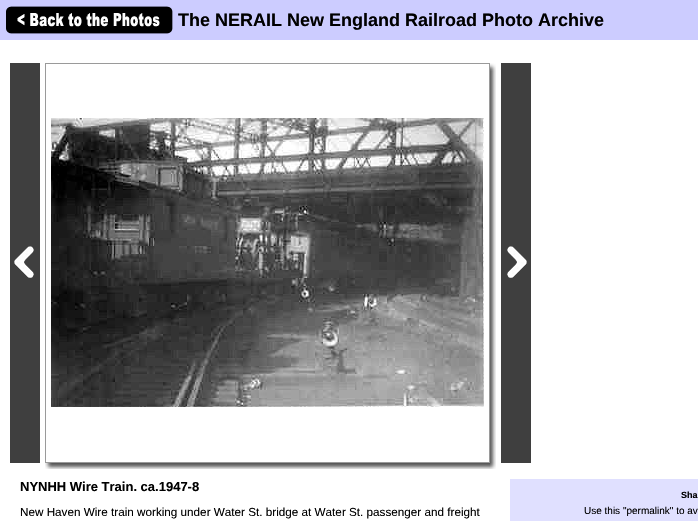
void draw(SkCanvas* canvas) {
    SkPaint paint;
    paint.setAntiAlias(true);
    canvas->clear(0xFFFFFFFF);
    paint.setColor(0xFFCCCCFF);
    canvas->drawRect(SkRect::MakeXYWH(0, 0, 698, 40), paint);
    canvas->drawImageRect(SkImages::DeferredFromEncodedData(SkData::MakeFromFileName("img1.png")), SkRect::MakeXYWH(6, 6, 167, 28), SkSamplingOptions());
    SkFont font1(fontMgr->matchFamilyStyle("Liberation Sans", SkFontStyle::Bold()), 18);
    font1.setSubpixel(true);
    paint.setColor(0xFF000000);
    canvas->drawString("The NERAIL New England Railroad Photo Archive", 178, 26, font1, paint);
    canvas->drawImageRect(SkImages::DeferredFromEncodedData(SkData::MakeFromFileName("img2.png")), SkRect::MakeXYWH(10, 63, 30, 400), SkSamplingOptions());
    paint.setStyle(SkPaint::kStroke_Style);
    paint.setStrokeWidth(1);
    paint.setColor(0xFF9A9A9A);
    canvas->drawRect(SkRect::MakeXYWH(45.5f, 63.5f, 444, 399), paint);
    canvas->drawImageRect(SkImages::DeferredFromEncodedData(SkData::MakeFromFileName("img3.png")), SkRect::MakeXYWH(51, 118, 433, 289), SkSamplingOptions());
    canvas->drawImageRect(SkImages::DeferredFromEncodedData(SkData::MakeFromFileName("img4.png")), SkRect::MakeXYWH(490, 63, 6, 400), SkSamplingOptions());
    canvas->drawImageRect(SkImages::DeferredFromEncodedData(SkData::MakeFromFileName("img5.png")), SkRect::MakeXYWH(501, 63, 30, 400), SkSamplingOptions());
    canvas->drawImageRect(SkImages::DeferredFromEncodedData(SkData::MakeFromFileName("img6.png")), SkRect::MakeXYWH(45, 463, 445, 6), SkSamplingOptions());
    canvas->drawImageRect(SkImages::DeferredFromEncodedData(SkData::MakeFromFileName("img7.png")), SkRect::MakeXYWH(490, 463, 6, 6), SkSamplingOptions());
    SkFont font2(fontMgr->matchFamilyStyle("Liberation Sans", SkFontStyle::Bold()), 13);
    font2.setSubpixel(true);
    paint.setStyle(SkPaint::kFill_Style);
    paint.setColor(0xFF000000);
    canvas->drawString("NYNHH Wire Train. ca.1947-8", 20, 491, font2, paint);
    SkFont font3(fontMgr->matchFamilyStyle("Liberation Sans", SkFontStyle::Normal()), 11.7f);
    font3.setSubpixel(true);
    canvas->drawString("New Haven Wire train working under Water St. bridge at Water St. passenger and freight", 20, 516, font3, paint);
    paint.setColor(0xFFE0E0FF);
    canvas->drawRect(SkRect::MakeXYWH(510, 479, 188, 42), paint);
    SkFont font4(fontMgr->matchFamilyStyle("Liberation Sans", SkFontStyle::Bold()), 9);
    font4.setSubpixel(true);
    paint.setColor(0xFF000000);
    canvas->drawString("Sha", 681, 498, font4, paint);
    SkFont font5(fontMgr->matchFamilyStyle("Liberation Sans", SkFontStyle::Normal()), 10);
    font5.setSubpixel(true);
    canvas->drawString("Use this \"permalink\" to av", 584, 514, font5, paint);
}
